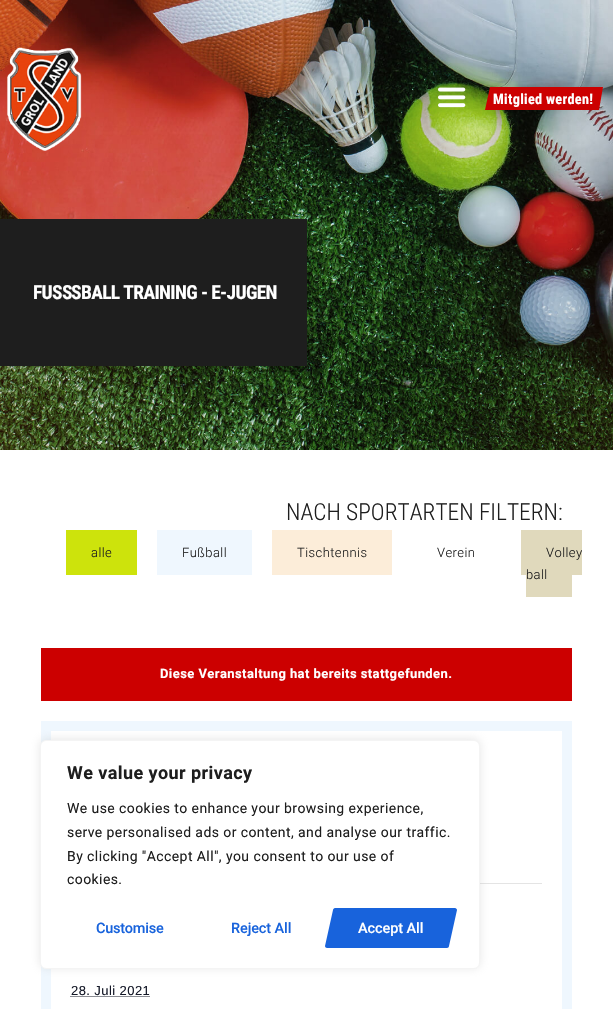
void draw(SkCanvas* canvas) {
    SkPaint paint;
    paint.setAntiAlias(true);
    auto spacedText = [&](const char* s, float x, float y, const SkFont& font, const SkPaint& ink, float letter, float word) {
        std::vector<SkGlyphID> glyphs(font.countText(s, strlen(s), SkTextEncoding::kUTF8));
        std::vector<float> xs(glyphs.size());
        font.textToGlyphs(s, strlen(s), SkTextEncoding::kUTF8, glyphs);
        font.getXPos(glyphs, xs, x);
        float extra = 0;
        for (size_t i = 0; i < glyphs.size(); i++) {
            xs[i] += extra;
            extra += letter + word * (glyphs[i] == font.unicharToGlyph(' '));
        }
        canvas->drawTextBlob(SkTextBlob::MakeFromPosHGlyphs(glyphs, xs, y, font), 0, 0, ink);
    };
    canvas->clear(0xFFFFFFFF);
    canvas->drawImageRect(SkImages::DeferredFromEncodedData(SkData::MakeFromFileName("img1.png")), SkRect::MakeXYWH(0, 0, 613, 450), SkSamplingOptions());
    canvas->drawImageRect(SkImages::DeferredFromEncodedData(SkData::MakeFromFileName("img2.png")), SkRect::MakeXYWH(7, 47, 75, 104), SkSamplingOptions());
    canvas->drawImageRect(SkImages::DeferredFromEncodedData(SkData::MakeFromFileName("img3.png")), SkRect::MakeXYWH(438, 87, 28, 21), SkSamplingOptions());
    paint.setColor(0xFFCC0000);
    canvas->drawPath(SkPathBuilder().moveTo(490, 87).lineTo(603, 87).lineTo(599, 110).lineTo(485, 110).close().detach(), paint);
    SkFont font1(fontMgr->matchFamilyStyle("Roboto Condensed", SkFontStyle::Bold()), 14.25f);
    font1.setSubpixel(true);
    paint.setColor(0xFFFFFFFF);
    spacedText("Mitglied werden!", 493, 104, font1, paint, 0.3f, 0);
    paint.setColor(0xFF1E1E1E);
    canvas->drawRect(SkRect::MakeXYWH(0, 219, 307, 147), paint);
    SkFont font2(fontMgr->matchFamilyStyle("Roboto Condensed", SkFontStyle::Bold()), 19.5f);
    font2.setSubpixel(true);
    paint.setColor(0xFFFFFFFF);
    spacedText("FUSS", 33, 299, font2, paint, -0.65f, 0);
    spacedText("SBALL TRAINING - E-JUGEN", 71, 299, font2, paint, -0.65f, 0);
    SkFont font3(fontMgr->matchFamilyStyle("Roboto Condensed", SkFontStyle(300, SkFontStyle::kNormal_Width, SkFontStyle::kUpright_Slant)), 23.4f);
    font3.setSubpixel(true);
    paint.setColor(0xFF1E1E1E);
    canvas->drawString("NACH SPORTARTEN FILTERN:", 286, 520, font3, paint);
    paint.setColor(0xFFCDE30C);
    canvas->drawRect(SkRect::MakeXYWH(66, 530, 71, 45), paint);
    SkFont font4(fontMgr->matchFamilyStyle("Roboto", SkFontStyle(300, SkFontStyle::kNormal_Width, SkFontStyle::kUpright_Slant)), 13);
    font4.setSubpixel(true);
    paint.setColor(0xFF1E1E1E);
    spacedText("alle", 91, 557, font4, paint, 0.42f, 0);
    paint.setColor(0xFFEFF7FE);
    canvas->drawRect(SkRect::MakeXYWH(157, 530, 95, 45), paint);
    paint.setColor(0xFF1E1E1E);
    spacedText("Fußball", 182, 557, font4, paint, 0.42f, 0);
    paint.setColor(0xFFFCEDD9);
    canvas->drawRect(SkRect::MakeXYWH(272, 530, 120, 45), paint);
    paint.setColor(0xFF1E1E1E);
    spacedText("Tischtennis", 297, 557, font4, paint, 0.42f, 0);
    spacedText("Verein", 437, 557, font4, paint, 0.42f, 0);
    paint.setColor(0xFFE0D9BC);
    canvas->drawRect(SkRect::MakeXYWH(521, 530, 61, 45), paint);
    paint.setColor(0xFF1E1E1E);
    spacedText("Volley", 546, 557, font4, paint, 0.42f, 0);
    paint.setColor(0xFFE0D9BC);
    canvas->drawRect(SkRect::MakeXYWH(526, 575, 46, 22), paint);
    paint.setColor(0xFF1E1E1E);
    spacedText("ball", 526, 579, font4, paint, 0.42f, 0);
    paint.setColor(0xFFCC0000);
    canvas->drawRect(SkRect::MakeXYWH(41, 648, 531, 53), paint);
    SkFont font5(fontMgr->matchFamilyStyle("Roboto", SkFontStyle::Bold()), 13);
    font5.setSubpixel(true);
    paint.setColor(0xFFFFFFFF);
    spacedText("Diese Veranstaltung hat bereits stattgefunden.", 160, 678, font5, paint, 0.42f, 0);
    paint.setStyle(SkPaint::kStroke_Style);
    paint.setStrokeWidth(10);
    paint.setColor(0xFFEFF7FE);
    canvas->drawRect(SkRect::MakeXYWH(46, 726, 521, 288), paint);
    paint.setStyle(SkPaint::kFill_Style);
    paint.setColor(0xFFE4E4E4);
    canvas->drawRect(SkRect::MakeXYWH(480, 883, 62, 1), paint);
    SkFont font6(fontMgr->matchFamilyStyle("Liberation Sans", SkFontStyle::Normal()), 13);
    font6.setSubpixel(true);
    paint.setColor(0xFF141827);
    spacedText("28. Juli 2021", 71, 995, font6, paint, 0.42f, 0);
    paint.setStyle(SkPaint::kStroke_Style);
    paint.setStrokeWidth(1);
    paint.setPathEffect(SkDashPathEffect::Make({{1, 1}}, 0));
    canvas->drawPath(SkPathBuilder().moveTo(70.5f, 996.5f).lineTo(150, 996.5f).detach(), paint);
    paint.setPathEffect(nullptr);
    paint.setStyle(SkPaint::kFill_Style);
    paint.setColor(0x4DACABAB);
    paint.setMaskFilter(SkMaskFilter::MakeBlur(kNormal_SkBlurStyle, 5));
    canvas->drawRoundRect(SkRect::MakeXYWH(40, 739, 440, 229), 6, 6, paint);
    paint.setMaskFilter(nullptr);
    paint.setColor(0xFFFFFFFF);
    canvas->drawRoundRect(SkRect::MakeXYWH(40.5f, 740.5f, 439, 228), 5.5f, 5.5f, paint);
    paint.setStyle(SkPaint::kStroke_Style);
    paint.setColor(0xFFF4F4F4);
    canvas->drawRoundRect(SkRect::MakeXYWH(40.5f, 740.5f, 439, 228), 5.5f, 5.5f, paint);
    SkFont font7(fontMgr->matchFamilyStyle("Roboto", SkFontStyle::Bold()), 18);
    font7.setSubpixel(true);
    paint.setStyle(SkPaint::kFill_Style);
    paint.setColor(0xFF1E1E1E);
    spacedText("We value your privacy", 67, 779, font7, paint, 0.42f, 0);
    SkFont font8(fontMgr->matchFamilyStyle("Roboto", SkFontStyle::Normal()), 14);
    font8.setSubpixel(true);
    spacedText("We use cookies to enhance your browsing experience,", 67, 813, font8, paint, 0.42f, 0);
    spacedText("serve personalised ads or content, and analyse our traffic.", 67, 837, font8, paint, 0.42f, 0);
    spacedText("By clicking \"Accept All\", you consent to our use of", 67, 861, font8, paint, 0.42f, 0);
    spacedText("cookies.", 67, 884, font8, paint, 0.42f, 0);
    SkFont font9(fontMgr->matchFamilyStyle("Roboto", SkFontStyle(500, SkFontStyle::kNormal_Width, SkFontStyle::kUpright_Slant)), 14.5f);
    font9.setSubpixel(true);
    paint.setColor(0xFF1863DC);
    spacedText("Customise", 96, 933, font9, paint, -0.25f, 0);
    spacedText("Reject All", 231, 933, font9, paint, -0.1f, 0);
    canvas->drawPath(SkPathBuilder().moveTo(335, 908).lineTo(455, 908).cubicTo(456, 908, 457, 909, 457, 910).lineTo(449, 946).cubicTo(449, 947, 448, 948, 447, 948).lineTo(327, 948).cubicTo(326, 948, 325, 947, 325, 946).lineTo(333, 910).cubicTo(333, 909, 334, 908, 335, 908).close().detach(), paint);
    paint.setColor(0xFFFFFFFF);
    spacedText("Accept All", 358, 933, font9, paint, -0.1f, 0);
}
